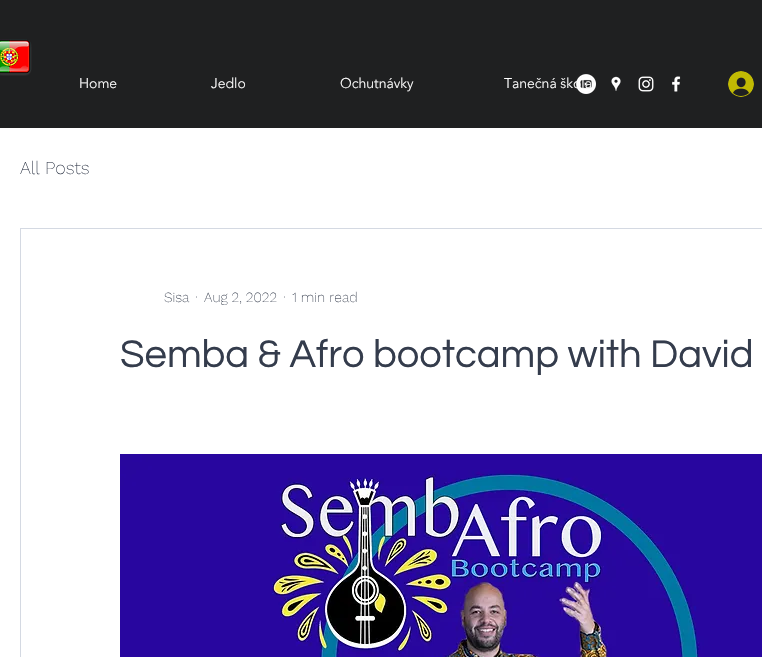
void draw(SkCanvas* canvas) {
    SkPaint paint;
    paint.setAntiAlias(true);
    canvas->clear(0xFFFFFFFF);
    paint.setColor(0xFF1F2021);
    canvas->drawRect(SkRect::MakeXYWH(0, 0, 762, 128), paint);
    canvas->drawImageRect(SkImages::DeferredFromEncodedData(SkData::MakeFromFileName("img1.png")), SkRect::MakeXYWH(0, 39, 32, 37), SkSamplingOptions());
    canvas->drawImageRect(SkImages::DeferredFromEncodedData(SkData::MakeFromFileName("img2.png")), SkRect::MakeXYWH(576, 74, 20, 20), SkSamplingOptions());
    canvas->drawImageRect(SkImages::DeferredFromEncodedData(SkData::MakeFromFileName("img3.png")), SkRect::MakeXYWH(611, 76, 10, 15), SkSamplingOptions());
    canvas->drawImageRect(SkImages::DeferredFromEncodedData(SkData::MakeFromFileName("img4.png")), SkRect::MakeXYWH(638, 76, 16, 16), SkSamplingOptions());
    canvas->drawImageRect(SkImages::DeferredFromEncodedData(SkData::MakeFromFileName("img5.png")), SkRect::MakeXYWH(672, 76, 9, 16), SkSamplingOptions());
    canvas->drawImageRect(SkImages::DeferredFromEncodedData(SkData::MakeFromFileName("img6.png")), SkRect::MakeXYWH(728, 71, 26, 26), SkSamplingOptions());
    SkFont font1(fontMgr->matchFamilyStyle("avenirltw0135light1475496", SkFontStyle(300, SkFontStyle::kNormal_Width, SkFontStyle::kUpright_Slant)), 14);
    font1.setSubpixel(true);
    paint.setColor(0xFFFFFFFF);
    canvas->drawString("Home", 79, 88, font1, paint);
    canvas->drawString("Jedlo", 211, 88, font1, paint);
    canvas->drawString("Ochutnávky", 340, 88, font1, paint);
    canvas->drawString("Tanečná škola", 504, 88, font1, paint);
    SkFont font2(fontMgr->matchFamilyStyle("Work Sans", SkFontStyle(200, SkFontStyle::kNormal_Width, SkFontStyle::kUpright_Slant)), 18);
    font2.setSubpixel(true);
    paint.setColor(0xFF343C4C);
    canvas->drawString("All Posts", 20, 174, font2, paint);
    paint.setStyle(SkPaint::kStroke_Style);
    paint.setStrokeWidth(1);
    paint.setColor(0xFFD4D9E2);
    canvas->drawRect(SkRect::MakeXYWH(20.5f, 228.5f, 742, 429), paint);
    SkFont font3(fontMgr->matchFamilyStyle("Work Sans", SkFontStyle(200, SkFontStyle::kNormal_Width, SkFontStyle::kUpright_Slant)), 14);
    font3.setSubpixel(true);
    paint.setStyle(SkPaint::kFill_Style);
    paint.setColor(0xFF343C4C);
    canvas->drawString("Sisa", 164, 302, font3, paint);
    canvas->drawString("·", 195, 302, font3, paint);
    canvas->drawString("Aug 2, 2022", 204, 302, font3, paint);
    canvas->drawString("·", 283, 302, font3, paint);
    canvas->drawString("1 min read", 292, 302, font3, paint);
    SkFont font4(fontMgr->matchFamilyStyle("Questrial", SkFontStyle::Normal()), 40);
    font4.setSubpixel(true);
    canvas->drawString("Semba & Afro bootcamp with David", 120, 367, font4, paint);
    canvas->drawImageRect(SkImages::DeferredFromEncodedData(SkData::MakeFromFileName("img7.png")), SkRect::MakeXYWH(120, 454, 642, 203), SkSamplingOptions());
}
